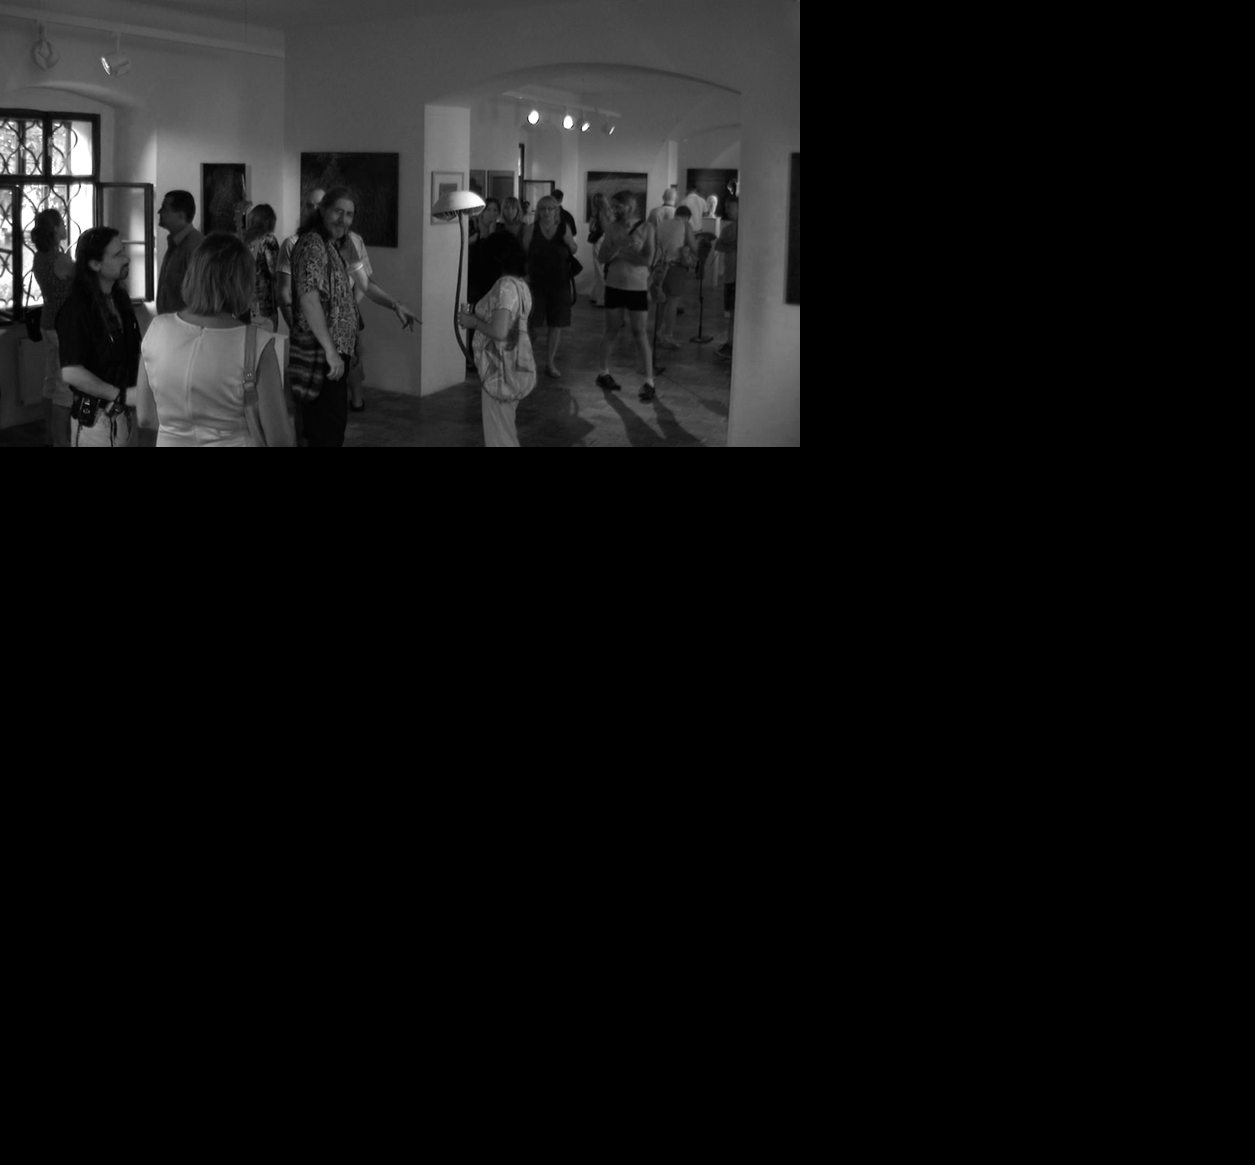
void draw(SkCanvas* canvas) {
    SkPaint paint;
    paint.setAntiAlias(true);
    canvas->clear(0xFF000000);
    canvas->drawImageRect(SkImages::DeferredFromEncodedData(SkData::MakeFromFileName("img1.png")), SkRect::MakeXYWH(0, 0, 800, 447), SkSamplingOptions());
}
